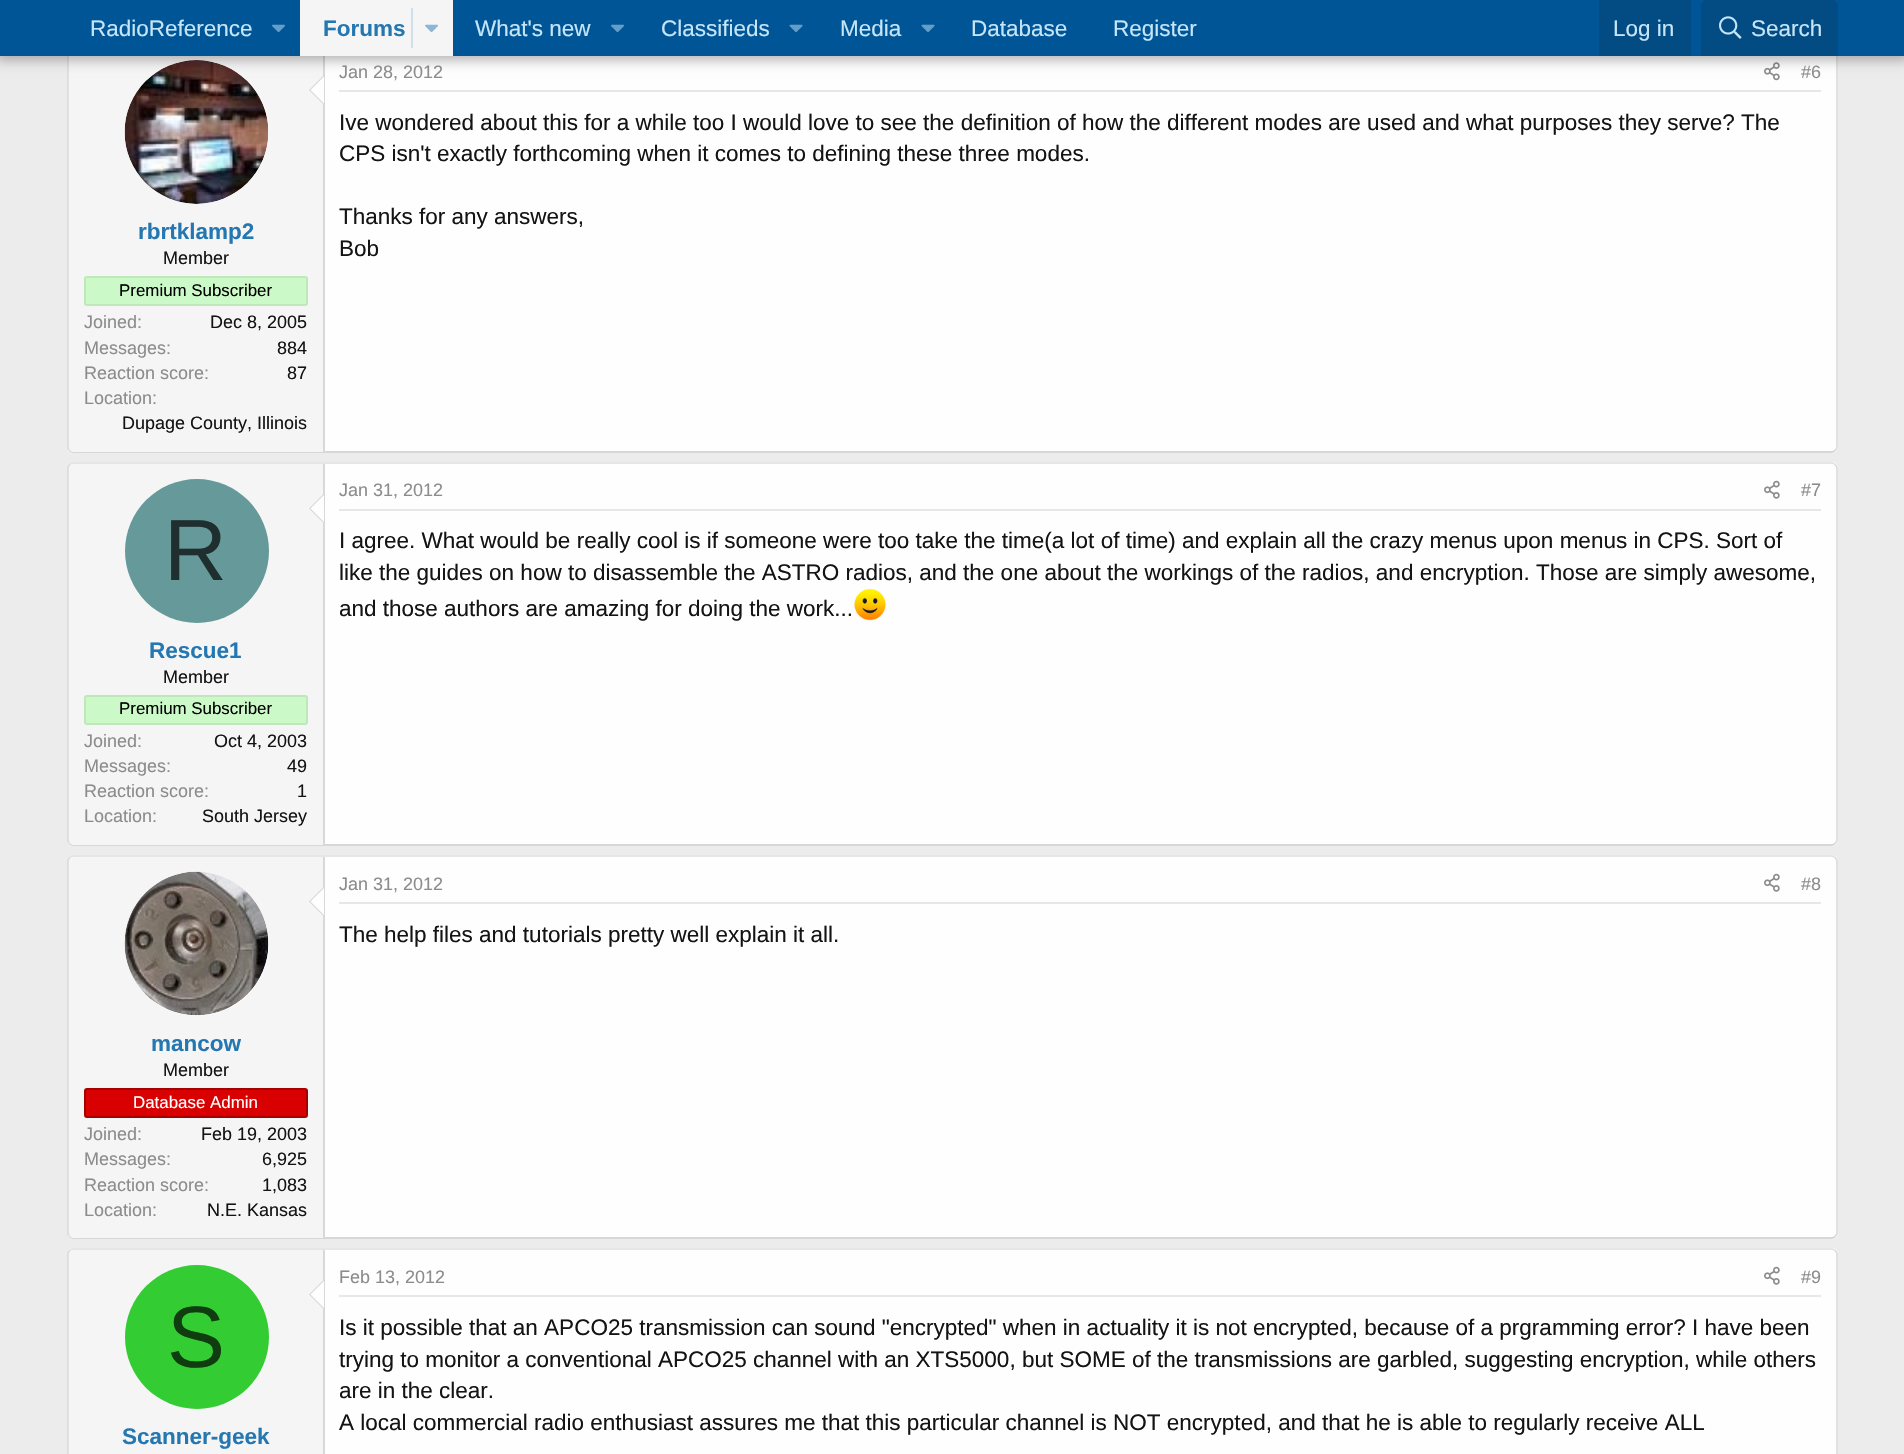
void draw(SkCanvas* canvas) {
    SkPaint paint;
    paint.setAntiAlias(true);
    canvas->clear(0xFFECECEC);
    paint.setColor(0xFFFEFEFE);
    canvas->drawRoundRect(SkRect::MakeXYWH(68, 44, 1770, 409), 6, 6, paint);
    paint.setStyle(SkPaint::kStroke_Style);
    paint.setStrokeWidth(1.5f);
    paint.setColor(0xFFD8D8D8);
    canvas->drawPath(SkPathBuilder().moveTo(1835, 46).cubicTo(1836, 47, 1837, 48, 1837, 49.5f).lineTo(1837, 447).cubicTo(1837, 448.5f, 1836, 449.5f, 1835, 450.5f).detach(), paint);
    paint.setColor(0xFFCBCBCB);
    canvas->drawPath(SkPathBuilder().moveTo(1835, 450.5f).cubicTo(1834, 451.5f, 1833, 452, 1831.5f, 452).lineTo(73.5f, 452).cubicTo(72, 452, 71, 451.5f, 70, 450.5f).detach(), paint);
    paint.setColor(0xFFD8D8D8);
    canvas->drawPath(SkPathBuilder().moveTo(70, 450.5f).cubicTo(69, 449.5f, 68, 448.5f, 68, 447).lineTo(68, 49.5f).cubicTo(68, 48, 69, 47, 70, 46).detach(), paint);
    canvas->drawImageRect(SkImages::DeferredFromEncodedData(SkData::MakeFromFileName("img5.png")), SkRect::MakeXYWH(1764, 62, 16, 19), SkSamplingOptions());
    paint.setStyle(SkPaint::kFill_Style);
    paint.setColor(0xFFF5F5F5);
    canvas->drawPath(SkPathBuilder().moveTo(74, 45).lineTo(324, 45).lineTo(324, 452).lineTo(74, 452).cubicTo(71, 452, 69, 450, 69, 447).lineTo(69, 50).cubicTo(69, 47, 71, 45, 74, 45).close().detach(), paint);
    paint.setColor(0xFFD8D8D8);
    canvas->drawRect(SkRect::MakeXYWH(323, 56, 2, 396), paint);
    paint.setColor(0xFFFEFEFE);
    canvas->drawCircle(197, 132, 72, paint);
    canvas->drawImageRect(SkImages::DeferredFromEncodedData(SkData::MakeFromFileName("img6.png")), SkRect::MakeXYWH(124, 60, 145, 144), SkSamplingOptions());
    paint.setColor(0xFFD8D8D8);
    canvas->drawPath(SkPathBuilder().moveTo(324, 75).lineTo(324, 105).lineTo(309, 90).close().detach(), paint);
    paint.setColor(0xFFFEFEFE);
    canvas->drawPath(SkPathBuilder().moveTo(324, 76.5f).lineTo(324, 103.5f).lineTo(310.5f, 90).close().detach(), paint);
    paint.setColor(0x4D000000);
    paint.setMaskFilter(SkMaskFilter::MakeBlur(kNormal_SkBlurStyle, 6));
    canvas->drawRect(SkRect::MakeXYWH(-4, -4, 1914, 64), paint);
    paint.setMaskFilter(nullptr);
    paint.setColor(0xFF005597);
    canvas->drawRect(SkRect::MakeXYWH(0, 0, 1904, 56), paint);
    SkFont font1(fontMgr->matchFamilyStyle("Liberation Sans", SkFontStyle::Normal()), 22.5f);
    font1.setSubpixel(true);
    paint.setColor(0xFFC5E5F8);
    canvas->drawString("RadioReference", 90, 36, font1, paint);
    canvas->drawImageRect(SkImages::DeferredFromEncodedData(SkData::MakeFromFileName("img1.png")), SkRect::MakeXYWH(272, 24, 13, 9), SkSamplingOptions());
    paint.setColor(0xFFF5F5F5);
    canvas->drawRect(SkRect::MakeXYWH(300, 0, 153, 56), paint);
    SkFont font2(fontMgr->matchFamilyStyle("Liberation Sans", SkFontStyle::Bold()), 22.5f);
    font2.setSubpixel(true);
    paint.setColor(0xFF2577B1);
    canvas->drawString("Forums", 323, 36, font2, paint);
    paint.setColor(0xFFD1DFE9);
    canvas->drawRect(SkRect::MakeXYWH(411, 8, 2, 40), paint);
    canvas->drawImageRect(SkImages::DeferredFromEncodedData(SkData::MakeFromFileName("img2.png")), SkRect::MakeXYWH(425, 24, 13, 9), SkSamplingOptions());
    paint.setColor(0xFFC5E5F8);
    canvas->drawString("What's new", 475, 36, font1, paint);
    canvas->drawImageRect(SkImages::DeferredFromEncodedData(SkData::MakeFromFileName("img1.png")), SkRect::MakeXYWH(611, 24, 13, 9), SkSamplingOptions());
    canvas->drawString("Classifieds", 661, 36, font1, paint);
    canvas->drawImageRect(SkImages::DeferredFromEncodedData(SkData::MakeFromFileName("img3.png")), SkRect::MakeXYWH(789, 24, 14, 9), SkSamplingOptions());
    canvas->drawString("Media", 840, 36, font1, paint);
    canvas->drawImageRect(SkImages::DeferredFromEncodedData(SkData::MakeFromFileName("img3.png")), SkRect::MakeXYWH(921, 24, 14, 9), SkSamplingOptions());
    canvas->drawString("Database", 971, 36, font1, paint);
    canvas->drawString("Register", 1113, 36, font1, paint);
    paint.setColor(0xFF034B83);
    canvas->drawRect(SkRect::MakeXYWH(1599, 0, 92, 56), paint);
    paint.setColor(0xFFC5E5F8);
    canvas->drawString("Log in", 1613, 36, font1, paint);
    paint.setColor(0xFF034B83);
    canvas->drawPath(SkPathBuilder().moveTo(1707, 0).lineTo(1832, 0).cubicTo(1835.5f, 0, 1838, 2.5f, 1838, 6).lineTo(1838, 56).lineTo(1701, 56).lineTo(1701, 6).cubicTo(1701, 2.5f, 1703.5f, 0, 1707, 0).close().detach(), paint);
    canvas->drawImageRect(SkImages::DeferredFromEncodedData(SkData::MakeFromFileName("img4.png")), SkRect::MakeXYWH(1719, 16, 23, 23), SkSamplingOptions());
    paint.setColor(0xFFC5E5F8);
    canvas->drawString("Search", 1751, 36, font1, paint);
    paint.setColor(0xFFE7E7E7);
    canvas->drawRect(SkRect::MakeXYWH(339, 90, 1482, 2), paint);
    SkFont font3(fontMgr->matchFamilyStyle("Liberation Sans", SkFontStyle::Normal()), 18);
    font3.setSubpixel(true);
    paint.setColor(0xFF8C8C8C);
    canvas->drawString("Jan 28, 2012", 339, 78, font3, paint);
    canvas->drawString("#6", 1801, 78, font3, paint);
    paint.setColor(0xFF141414);
    canvas->drawString("Ive wondered about this for a while too I would love to see the definition of how the different modes are used and what purposes they serve? The", 339, 130, font1, paint);
    canvas->drawString("CPS isn't exactly forthcoming when it comes to defining these three modes.", 339, 161, font1, paint);
    canvas->drawString("Thanks for any answers,", 339, 224, font1, paint);
    canvas->drawString("Bob", 339, 256, font1, paint);
    paint.setColor(0xFF2577B1);
    canvas->drawString("rbrtklamp2", 138, 239, font2, paint);
    paint.setColor(0xFF141414);
    canvas->drawString("Member", 163, 264, font3, paint);
    paint.setColor(0xFFCCF9C8);
    canvas->drawRoundRect(SkRect::MakeXYWH(85, 277, 222, 28), 2, 2, paint);
    paint.setStyle(SkPaint::kStroke_Style);
    paint.setStrokeWidth(2);
    paint.setColor(0xFFBEE8BA);
    canvas->drawRoundRect(SkRect::MakeXYWH(85, 277, 222, 28), 2, 2, paint);
    SkFont font4(fontMgr->matchFamilyStyle("Liberation Sans", SkFontStyle::Normal()), 16.9f);
    font4.setSubpixel(true);
    paint.setStyle(SkPaint::kFill_Style);
    paint.setColor(0xFF000000);
    canvas->drawString("Premium Subscriber", 119, 296, font4, paint);
    paint.setColor(0xFF8C8C8C);
    canvas->drawString("Joined:", 84, 328, font3, paint);
    paint.setColor(0xFF141414);
    canvas->drawString("Dec 8, 2005", 210, 328, font3, paint);
    paint.setColor(0xFF8C8C8C);
    canvas->drawString("Messages:", 84, 354, font3, paint);
    paint.setColor(0xFF141414);
    canvas->drawString("884", 277, 354, font3, paint);
    paint.setColor(0xFF8C8C8C);
    canvas->drawString("Reaction score:", 84, 379, font3, paint);
    paint.setColor(0xFF141414);
    canvas->drawString("87", 287, 379, font3, paint);
    paint.setColor(0xFF8C8C8C);
    canvas->drawString("Location:", 84, 404, font3, paint);
    paint.setColor(0xFF141414);
    canvas->drawString("Dupage County, Illinois", 122, 429, font3, paint);
    paint.setColor(0xFFFEFEFE);
    canvas->drawRoundRect(SkRect::MakeXYWH(68, 462, 1770, 384), 6, 6, paint);
    paint.setStyle(SkPaint::kStroke_Style);
    paint.setStrokeWidth(1.5f);
    paint.setColor(0xFFDFDFDF);
    canvas->drawPath(SkPathBuilder().moveTo(70, 464.5f).cubicTo(71, 463.5f, 72, 463, 73.5f, 463).lineTo(1831.5f, 463).cubicTo(1833, 463, 1834, 463.5f, 1835, 464.5f).detach(), paint);
    paint.setColor(0xFFD8D8D8);
    canvas->drawPath(SkPathBuilder().moveTo(1835, 464.5f).cubicTo(1836, 465.5f, 1837, 466.5f, 1837, 468).lineTo(1837, 840).cubicTo(1837, 841.5f, 1836, 842.5f, 1835, 843.5f).detach(), paint);
    paint.setColor(0xFFCBCBCB);
    canvas->drawPath(SkPathBuilder().moveTo(1835, 843.5f).cubicTo(1834, 844.5f, 1833, 845, 1831.5f, 845).lineTo(73.5f, 845).cubicTo(72, 845, 71, 844.5f, 70, 843.5f).detach(), paint);
    paint.setColor(0xFFD8D8D8);
    canvas->drawPath(SkPathBuilder().moveTo(70, 843.5f).cubicTo(69, 842.5f, 68, 841.5f, 68, 840).lineTo(68, 468).cubicTo(68, 466.5f, 69, 465.5f, 70, 464.5f).detach(), paint);
    paint.setStyle(SkPaint::kFill_Style);
    paint.setColor(0xFFF5F5F5);
    canvas->drawPath(SkPathBuilder().moveTo(74, 464).lineTo(324, 464).lineTo(324, 845).lineTo(74, 845).cubicTo(71, 845, 69, 843, 69, 840).lineTo(69, 469).cubicTo(69, 466, 71, 464, 74, 464).close().detach(), paint);
    paint.setColor(0xFFD8D8D8);
    canvas->drawRect(SkRect::MakeXYWH(323, 464, 2, 381), paint);
    canvas->drawPath(SkPathBuilder().moveTo(324, 493.5f).lineTo(324, 523.5f).lineTo(309, 508.5f).close().detach(), paint);
    paint.setColor(0xFFFEFEFE);
    canvas->drawPath(SkPathBuilder().moveTo(324, 495).lineTo(324, 522).lineTo(310.5f, 508.5f).close().detach(), paint);
    paint.setColor(0xFF669999);
    canvas->drawCircle(197, 551, 72, paint);
    SkFont font5(fontMgr->matchFamilyStyle("Liberation Sans", SkFontStyle::Normal()), 87);
    font5.setSubpixel(true);
    paint.setColor(0xFF1F2E2E);
    canvas->drawString("R", 164, 580, font5, paint);
    paint.setColor(0xFF2577B1);
    canvas->drawString("Rescue1", 149, 658, font2, paint);
    paint.setColor(0xFF141414);
    canvas->drawString("Member", 163, 683, font3, paint);
    paint.setColor(0xFFCCF9C8);
    canvas->drawRoundRect(SkRect::MakeXYWH(85, 696, 222, 28), 2, 2, paint);
    paint.setStyle(SkPaint::kStroke_Style);
    paint.setStrokeWidth(2);
    paint.setColor(0xFFBEE8BA);
    canvas->drawRoundRect(SkRect::MakeXYWH(85, 696, 222, 28), 2, 2, paint);
    paint.setStyle(SkPaint::kFill_Style);
    paint.setColor(0xFF000000);
    canvas->drawString("Premium Subscriber", 119, 714, font4, paint);
    paint.setColor(0xFF8C8C8C);
    canvas->drawString("Joined:", 84, 747, font3, paint);
    paint.setColor(0xFF141414);
    canvas->drawString("Oct 4, 2003", 214, 747, font3, paint);
    paint.setColor(0xFF8C8C8C);
    canvas->drawString("Messages:", 84, 772, font3, paint);
    paint.setColor(0xFF141414);
    canvas->drawString("49", 287, 772, font3, paint);
    paint.setColor(0xFF8C8C8C);
    canvas->drawString("Reaction score:", 84, 797, font3, paint);
    paint.setColor(0xFF141414);
    canvas->drawString("1", 297, 797, font3, paint);
    paint.setColor(0xFF8C8C8C);
    canvas->drawString("Location:", 84, 822, font3, paint);
    paint.setColor(0xFF141414);
    canvas->drawString("South Jersey", 202, 822, font3, paint);
    paint.setColor(0xFFE7E7E7);
    canvas->drawRect(SkRect::MakeXYWH(339, 509, 1482, 2), paint);
    paint.setColor(0xFF8C8C8C);
    canvas->drawString("Jan 31, 2012", 339, 496, font3, paint);
    canvas->drawImageRect(SkImages::DeferredFromEncodedData(SkData::MakeFromFileName("img7.png")), SkRect::MakeXYWH(1764, 480, 16, 19), SkSamplingOptions());
    canvas->drawString("#7", 1801, 496, font3, paint);
    paint.setColor(0xFF141414);
    canvas->drawString("I agree. What would be really cool is if someone were too take the time(a lot of time) and explain all the crazy menus upon menus in CPS. Sort of", 339, 548, font1, paint);
    canvas->drawString("like the guides on how to disassemble the ASTRO radios, and the one about the workings of the radios, and encryption. Those are simply awesome,", 339, 580, font1, paint);
    canvas->drawString("and those authors are amazing for doing the work...", 339, 616, font1, paint);
    canvas->drawImageRect(SkImages::DeferredFromEncodedData(SkData::MakeFromFileName("img8.png")), SkRect::MakeXYWH(854, 588, 32, 33), SkSamplingOptions());
    paint.setColor(0xFFFEFEFE);
    canvas->drawRoundRect(SkRect::MakeXYWH(68, 855, 1770, 384), 6, 6, paint);
    paint.setStyle(SkPaint::kStroke_Style);
    paint.setStrokeWidth(1.5f);
    paint.setColor(0xFFDFDFDF);
    canvas->drawPath(SkPathBuilder().moveTo(70, 857.5f).cubicTo(71, 856.5f, 72, 856, 73.5f, 856).lineTo(1831.5f, 856).cubicTo(1833, 856, 1834, 856.5f, 1835, 857.5f).detach(), paint);
    paint.setColor(0xFFD8D8D8);
    canvas->drawPath(SkPathBuilder().moveTo(1835, 857.5f).cubicTo(1836, 858.5f, 1837, 859.5f, 1837, 861).lineTo(1837, 1233).cubicTo(1837, 1234.5f, 1836, 1235.5f, 1835, 1236.5f).detach(), paint);
    paint.setColor(0xFFCBCBCB);
    canvas->drawPath(SkPathBuilder().moveTo(1835, 1236.5f).cubicTo(1834, 1237.5f, 1833, 1238, 1831.5f, 1238).lineTo(73.5f, 1238).cubicTo(72, 1238, 71, 1237.5f, 70, 1236.5f).detach(), paint);
    paint.setColor(0xFFD8D8D8);
    canvas->drawPath(SkPathBuilder().moveTo(70, 1236.5f).cubicTo(69, 1235.5f, 68, 1234.5f, 68, 1233).lineTo(68, 861).cubicTo(68, 859.5f, 69, 858.5f, 70, 857.5f).detach(), paint);
    paint.setStyle(SkPaint::kFill_Style);
    paint.setColor(0xFFE7E7E7);
    canvas->drawRect(SkRect::MakeXYWH(339, 902, 1482, 2), paint);
    paint.setColor(0xFF8C8C8C);
    canvas->drawString("Jan 31, 2012", 339, 890, font3, paint);
    canvas->drawImageRect(SkImages::DeferredFromEncodedData(SkData::MakeFromFileName("img7.png")), SkRect::MakeXYWH(1764, 873, 16, 19), SkSamplingOptions());
    canvas->drawString("#8", 1801, 890, font3, paint);
    paint.setColor(0xFF141414);
    canvas->drawString("The help files and tutorials pretty well explain it all.", 339, 942, font1, paint);
    paint.setColor(0xFFF5F5F5);
    canvas->drawPath(SkPathBuilder().moveTo(74, 857).lineTo(324, 857).lineTo(324, 1238).lineTo(74, 1238).cubicTo(71, 1238, 69, 1236, 69, 1233).lineTo(69, 862).cubicTo(69, 859, 71, 857, 74, 857).close().detach(), paint);
    paint.setColor(0xFFD8D8D8);
    canvas->drawRect(SkRect::MakeXYWH(323, 857, 2, 381), paint);
    paint.setColor(0xFFFEFEFE);
    canvas->drawCircle(197, 944, 72, paint);
    canvas->drawImageRect(SkImages::DeferredFromEncodedData(SkData::MakeFromFileName("img9.png")), SkRect::MakeXYWH(124, 871, 145, 145), SkSamplingOptions());
    paint.setColor(0xFFD8D8D8);
    canvas->drawPath(SkPathBuilder().moveTo(324, 886.5f).lineTo(324, 916.5f).lineTo(309, 901.5f).close().detach(), paint);
    paint.setColor(0xFFFEFEFE);
    canvas->drawPath(SkPathBuilder().moveTo(324, 888).lineTo(324, 915).lineTo(310.5f, 901.5f).close().detach(), paint);
    paint.setColor(0xFF2577B1);
    canvas->drawString("mancow", 151, 1051, font2, paint);
    paint.setColor(0xFF141414);
    canvas->drawString("Member", 163, 1076, font3, paint);
    paint.setColor(0xFFD80000);
    canvas->drawRoundRect(SkRect::MakeXYWH(85, 1089, 222, 28), 2, 2, paint);
    paint.setStyle(SkPaint::kStroke_Style);
    paint.setStrokeWidth(2);
    paint.setColor(0xFFA50000);
    canvas->drawRoundRect(SkRect::MakeXYWH(85, 1089, 222, 28), 2, 2, paint);
    paint.setStyle(SkPaint::kFill_Style);
    paint.setColor(0xFFFFFFFF);
    canvas->drawString("Database Admin", 133, 1108, font4, paint);
    paint.setColor(0xFF8C8C8C);
    canvas->drawString("Joined:", 84, 1140, font3, paint);
    paint.setColor(0xFF141414);
    canvas->drawString("Feb 19, 2003", 201, 1140, font3, paint);
    paint.setColor(0xFF8C8C8C);
    canvas->drawString("Messages:", 84, 1165, font3, paint);
    paint.setColor(0xFF141414);
    canvas->drawString("6,925", 262, 1165, font3, paint);
    paint.setColor(0xFF8C8C8C);
    canvas->drawString("Reaction score:", 84, 1191, font3, paint);
    paint.setColor(0xFF141414);
    canvas->drawString("1,083", 262, 1191, font3, paint);
    paint.setColor(0xFF8C8C8C);
    canvas->drawString("Location:", 84, 1216, font3, paint);
    paint.setColor(0xFF141414);
    canvas->drawString("N.E. Kansas", 207, 1216, font3, paint);
    paint.setColor(0xFFFEFEFE);
    canvas->drawRoundRect(SkRect::MakeXYWH(68, 1248, 1770, 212), 6, 6, paint);
    paint.setStyle(SkPaint::kStroke_Style);
    paint.setStrokeWidth(1.5f);
    paint.setColor(0xFFDFDFDF);
    canvas->drawPath(SkPathBuilder().moveTo(70, 1250.5f).cubicTo(71, 1249.5f, 72, 1249, 73.5f, 1249).lineTo(1831.5f, 1249).cubicTo(1833, 1249, 1834, 1249.5f, 1835, 1250.5f).detach(), paint);
    paint.setColor(0xFFD8D8D8);
    canvas->drawPath(SkPathBuilder().moveTo(1835, 1250.5f).cubicTo(1836, 1251.5f, 1837, 1252.5f, 1837, 1254).lineTo(1837, 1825.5f).cubicTo(1837, 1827, 1836, 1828, 1835, 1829).detach(), paint);
    canvas->drawPath(SkPathBuilder().moveTo(70, 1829).cubicTo(69, 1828, 68, 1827, 68, 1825.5f).lineTo(68, 1254).cubicTo(68, 1252.5f, 69, 1251.5f, 70, 1250.5f).detach(), paint);
    paint.setStyle(SkPaint::kFill_Style);
    paint.setColor(0xFFF5F5F5);
    canvas->drawPath(SkPathBuilder().moveTo(74, 1250).lineTo(324, 1250).lineTo(324, 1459).lineTo(74, 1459).cubicTo(71, 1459, 69, 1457, 69, 1454).lineTo(69, 1255).cubicTo(69, 1252, 71, 1250, 74, 1250).close().detach(), paint);
    paint.setColor(0xFFD8D8D8);
    canvas->drawRect(SkRect::MakeXYWH(323, 1250, 2, 204), paint);
    canvas->drawPath(SkPathBuilder().moveTo(324, 1279.5f).lineTo(324, 1309.5f).lineTo(309, 1294.5f).close().detach(), paint);
    paint.setColor(0xFFFEFEFE);
    canvas->drawPath(SkPathBuilder().moveTo(324, 1281).lineTo(324, 1308).lineTo(310.5f, 1294.5f).close().detach(), paint);
    paint.setColor(0xFF33CC33);
    canvas->drawCircle(197, 1337, 72, paint);
    paint.setColor(0xFF0F3D0F);
    canvas->drawString("S", 167, 1367, font5, paint);
    paint.setColor(0xFF2577B1);
    canvas->drawString("Scanner-geek", 122, 1444, font2, paint);
    paint.setColor(0xFFE7E7E7);
    canvas->drawRect(SkRect::MakeXYWH(339, 1295, 1482, 2), paint);
    paint.setColor(0xFF8C8C8C);
    canvas->drawString("Feb 13, 2012", 339, 1283, font3, paint);
    canvas->drawImageRect(SkImages::DeferredFromEncodedData(SkData::MakeFromFileName("img7.png")), SkRect::MakeXYWH(1764, 1266, 16, 19), SkSamplingOptions());
    canvas->drawString("#9", 1801, 1283, font3, paint);
    paint.setColor(0xFF141414);
    canvas->drawString("Is it possible that an APCO25 transmission can sound \"encrypted\" when in actuality it is not encrypted, because of a prgramming error? I have been", 339, 1335, font1, paint);
    canvas->drawString("trying to monitor a conventional APCO25 channel with an XTS5000, but SOME of the transmissions are garbled, suggesting encryption, while others", 339, 1367, font1, paint);
    canvas->drawString("are in the clear.", 339, 1398, font1, paint);
    canvas->drawString("A local commercial radio enthusiast assures me that this particular channel is NOT encrypted, and that he is able to regularly receive ALL", 339, 1430, font1, paint);
}
